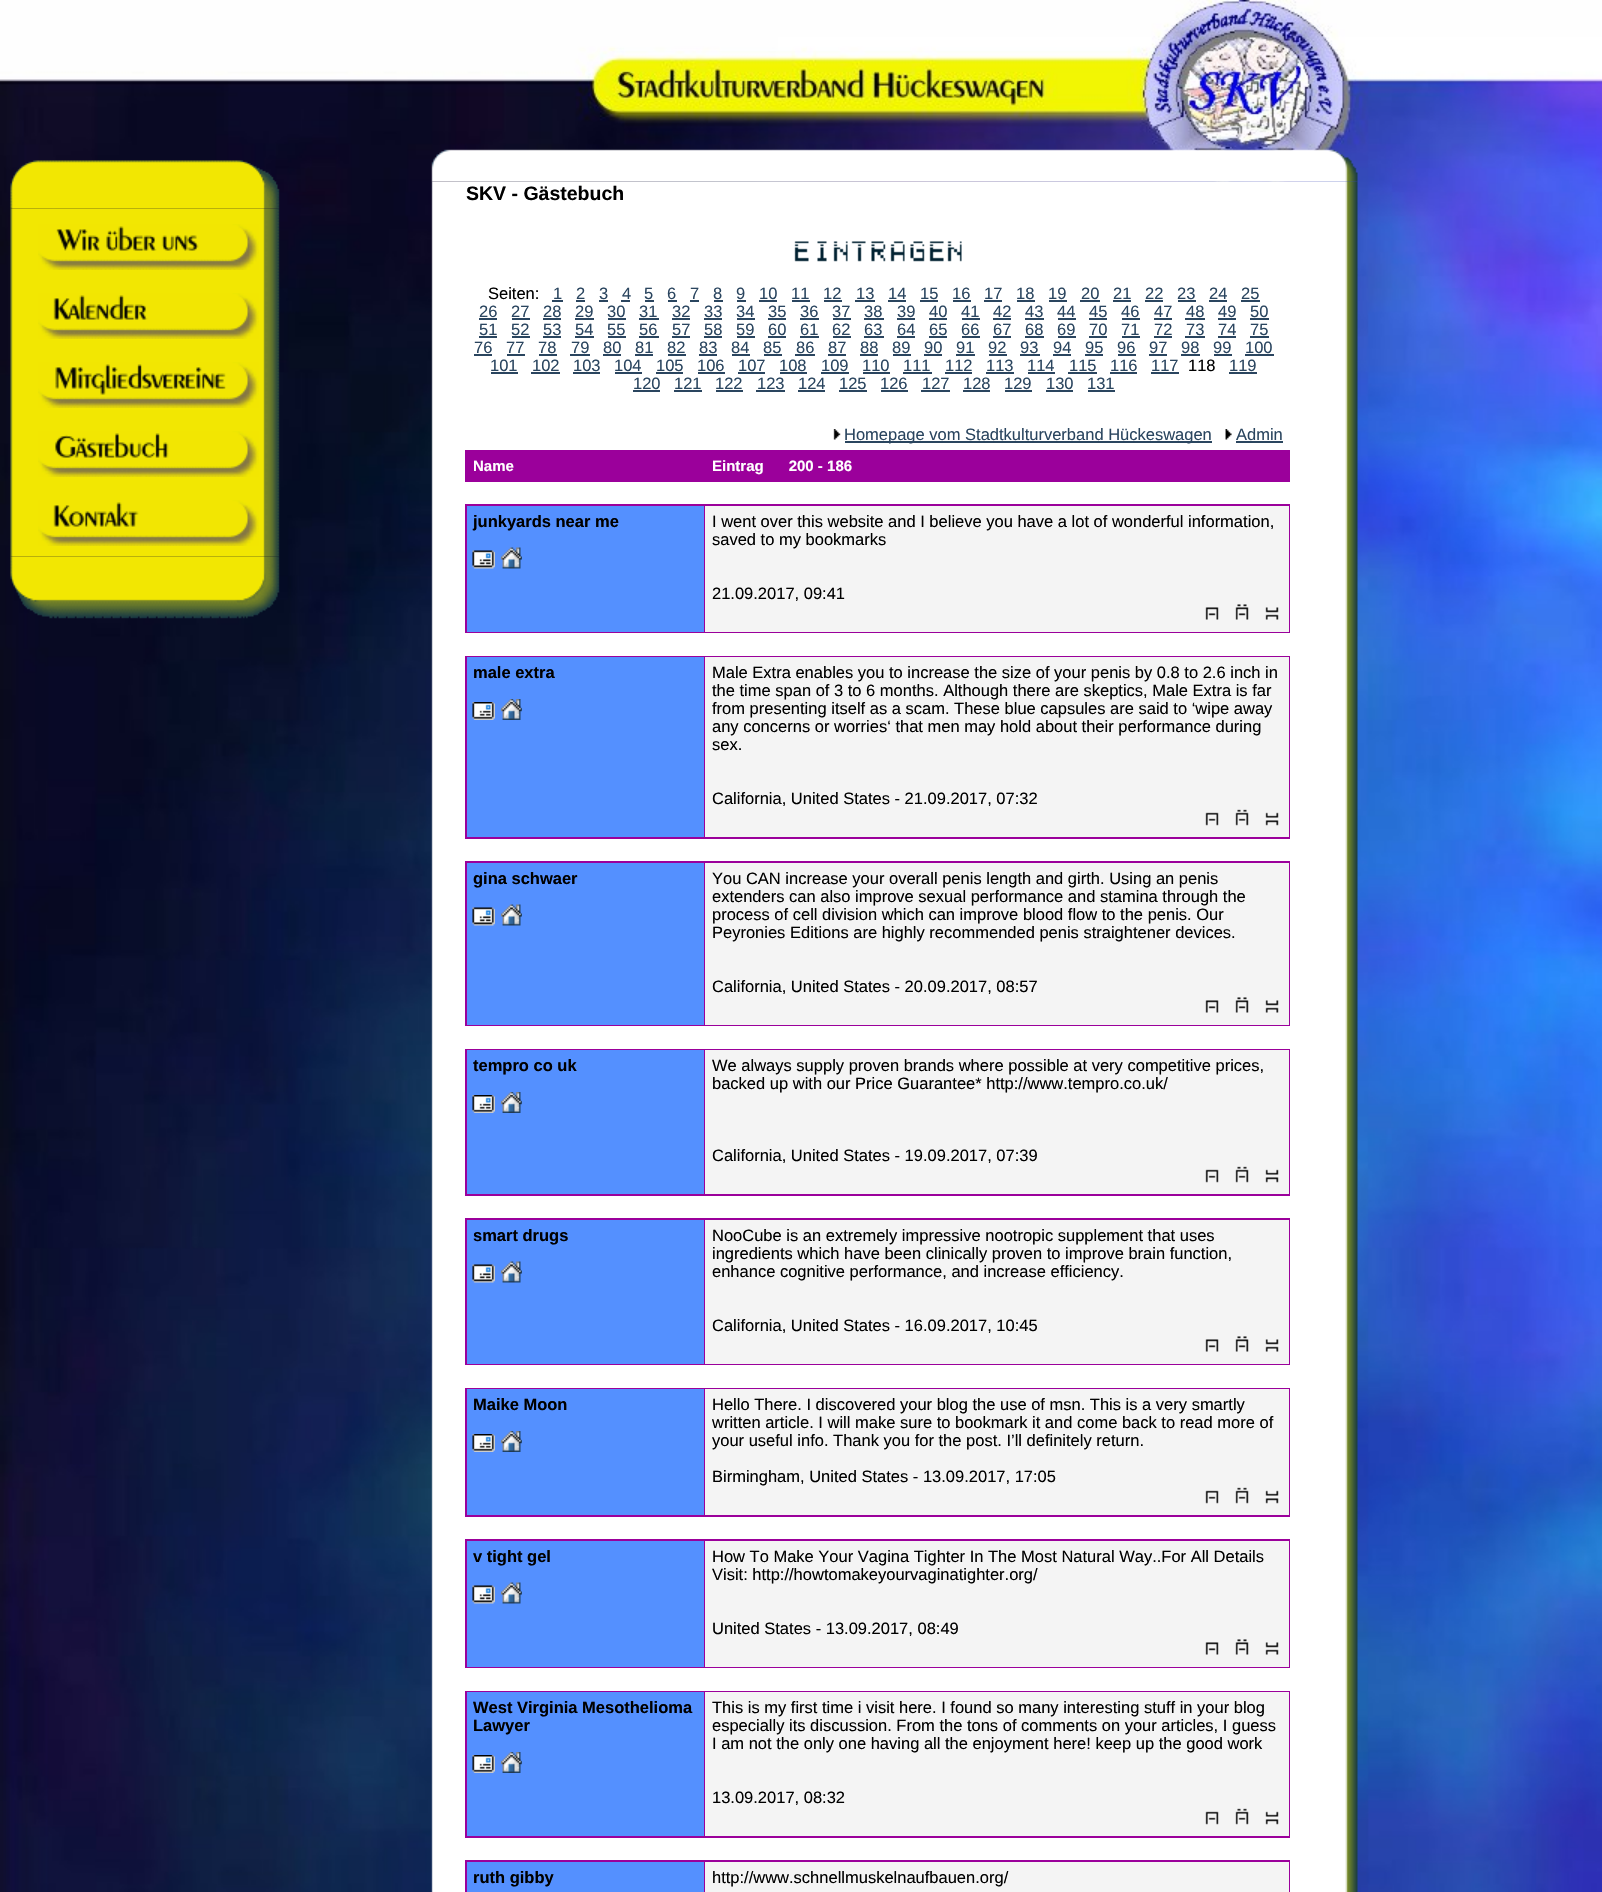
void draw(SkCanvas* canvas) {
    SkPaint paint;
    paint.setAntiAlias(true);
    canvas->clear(0xFFFFFFFF);
    canvas->drawImageRect(SkImages::DeferredFromEncodedData(SkData::MakeFromFileName("img1.png")), SkRect::MakeXYWH(0, 0, 1602, 1892), SkSamplingOptions());
    canvas->drawImageRect(SkImages::DeferredFromEncodedData(SkData::MakeFromFileName("img2.png")), SkRect::MakeXYWH(10, 160, 270, 49), SkSamplingOptions());
    canvas->drawImageRect(SkImages::DeferredFromEncodedData(SkData::MakeFromFileName("img3.png")), SkRect::MakeXYWH(10, 208, 270, 349), SkSamplingOptions());
    canvas->drawImageRect(SkImages::DeferredFromEncodedData(SkData::MakeFromFileName("img4.png")), SkRect::MakeXYWH(38, 224, 221, 46), SkSamplingOptions());
    canvas->drawImageRect(SkImages::DeferredFromEncodedData(SkData::MakeFromFileName("img5.png")), SkRect::MakeXYWH(38, 293, 221, 46), SkSamplingOptions());
    canvas->drawImageRect(SkImages::DeferredFromEncodedData(SkData::MakeFromFileName("img6.png")), SkRect::MakeXYWH(38, 362, 221, 46), SkSamplingOptions());
    canvas->drawImageRect(SkImages::DeferredFromEncodedData(SkData::MakeFromFileName("img7.png")), SkRect::MakeXYWH(38, 431, 221, 46), SkSamplingOptions());
    canvas->drawImageRect(SkImages::DeferredFromEncodedData(SkData::MakeFromFileName("img8.png")), SkRect::MakeXYWH(38, 500, 221, 46), SkSamplingOptions());
    canvas->drawImageRect(SkImages::DeferredFromEncodedData(SkData::MakeFromFileName("img9.png")), SkRect::MakeXYWH(10, 556, 270, 63), SkSamplingOptions());
    canvas->drawImageRect(SkImages::DeferredFromEncodedData(SkData::MakeFromFileName("img10.png")), SkRect::MakeXYWH(431, 149, 927, 33), SkSamplingOptions());
    canvas->drawImageRect(SkImages::DeferredFromEncodedData(SkData::MakeFromFileName("img11.png")), SkRect::MakeXYWH(431, 181, 927, 1711), SkSamplingOptions());
    SkFont font1(fontMgr->matchFamilyStyle("Liberation Sans", SkFontStyle::Bold()), 19.5f);
    font1.setSubpixel(true);
    paint.setColor(0xFF000000);
    canvas->drawString("SKV - Gästebuch", 466, 200, font1, paint);
    canvas->drawImageRect(SkImages::DeferredFromEncodedData(SkData::MakeFromFileName("img12.png")), SkRect::MakeXYWH(794, 241, 168, 21), SkSamplingOptions());
    SkFont font2(fontMgr->matchFamilyStyle("Liberation Sans", SkFontStyle::Normal()), 16.5f);
    font2.setSubpixel(true);
    canvas->drawString("Seiten:", 488, 299, font2, paint);
    paint.setColor(0xFF2A455F);
    canvas->drawString("1", 553, 299, font2, paint);
    canvas->drawRect(SkRect::MakeXYWH(552, 300, 11, 2), paint);
    canvas->drawString("2", 576, 299, font2, paint);
    canvas->drawRect(SkRect::MakeXYWH(576, 300, 9, 2), paint);
    canvas->drawString("3", 599, 299, font2, paint);
    canvas->drawRect(SkRect::MakeXYWH(599, 300, 9, 2), paint);
    canvas->drawString("4", 622, 299, font2, paint);
    canvas->drawRect(SkRect::MakeXYWH(621, 300, 9, 2), paint);
    canvas->drawString("5", 644, 299, font2, paint);
    canvas->drawRect(SkRect::MakeXYWH(645, 300, 9, 2), paint);
    canvas->drawString("6", 667, 299, font2, paint);
    canvas->drawRect(SkRect::MakeXYWH(668, 300, 9, 2), paint);
    canvas->drawString("7", 690, 299, font2, paint);
    canvas->drawRect(SkRect::MakeXYWH(690, 300, 9, 2), paint);
    canvas->drawString("8", 713, 299, font2, paint);
    canvas->drawRect(SkRect::MakeXYWH(714, 300, 9, 2), paint);
    canvas->drawString("9", 736, 299, font2, paint);
    canvas->drawRect(SkRect::MakeXYWH(737, 300, 9, 2), paint);
    canvas->drawString("10", 759, 299, font2, paint);
    canvas->drawRect(SkRect::MakeXYWH(759, 300, 18, 2), paint);
    canvas->drawString("11", 791, 299, font2, paint);
    canvas->drawRect(SkRect::MakeXYWH(792, 300, 18, 2), paint);
    canvas->drawString("12", 823, 299, font2, paint);
    canvas->drawRect(SkRect::MakeXYWH(824, 300, 18, 2), paint);
    canvas->drawString("13", 856, 299, font2, paint);
    canvas->drawRect(SkRect::MakeXYWH(855, 300, 20, 2), paint);
    canvas->drawString("14", 888, 299, font2, paint);
    canvas->drawRect(SkRect::MakeXYWH(888, 300, 18, 2), paint);
    canvas->drawString("15", 920, 299, font2, paint);
    canvas->drawRect(SkRect::MakeXYWH(920, 300, 18, 2), paint);
    canvas->drawString("16", 952, 299, font2, paint);
    canvas->drawRect(SkRect::MakeXYWH(953, 300, 18, 2), paint);
    canvas->drawString("17", 984, 299, font2, paint);
    canvas->drawRect(SkRect::MakeXYWH(984, 300, 18, 2), paint);
    canvas->drawString("18", 1016, 299, font2, paint);
    canvas->drawRect(SkRect::MakeXYWH(1017, 300, 18, 2), paint);
    canvas->drawString("19", 1048, 299, font2, paint);
    canvas->drawRect(SkRect::MakeXYWH(1049, 300, 18, 2), paint);
    canvas->drawString("20", 1081, 299, font2, paint);
    canvas->drawRect(SkRect::MakeXYWH(1080, 300, 20, 2), paint);
    canvas->drawString("21", 1113, 299, font2, paint);
    canvas->drawRect(SkRect::MakeXYWH(1113, 300, 18, 2), paint);
    canvas->drawString("22", 1145, 299, font2, paint);
    canvas->drawRect(SkRect::MakeXYWH(1145, 300, 18, 2), paint);
    canvas->drawString("23", 1177, 299, font2, paint);
    canvas->drawRect(SkRect::MakeXYWH(1178, 300, 18, 2), paint);
    canvas->drawString("24", 1209, 299, font2, paint);
    canvas->drawRect(SkRect::MakeXYWH(1209, 300, 18, 2), paint);
    canvas->drawString("25", 1241, 299, font2, paint);
    canvas->drawRect(SkRect::MakeXYWH(1241, 300, 19, 2), paint);
    canvas->drawString("26", 479, 317, font2, paint);
    canvas->drawRect(SkRect::MakeXYWH(479, 318, 18, 2), paint);
    canvas->drawString("27", 511, 317, font2, paint);
    canvas->drawRect(SkRect::MakeXYWH(512, 318, 18, 2), paint);
    canvas->drawString("28", 543, 317, font2, paint);
    canvas->drawRect(SkRect::MakeXYWH(543, 318, 18, 2), paint);
    canvas->drawString("29", 575, 317, font2, paint);
    canvas->drawRect(SkRect::MakeXYWH(575, 318, 19, 2), paint);
    canvas->drawString("30", 607, 317, font2, paint);
    canvas->drawRect(SkRect::MakeXYWH(608, 318, 18, 2), paint);
    canvas->drawString("31", 639, 317, font2, paint);
    canvas->drawRect(SkRect::MakeXYWH(639, 318, 20, 2), paint);
    canvas->drawString("32", 672, 317, font2, paint);
    canvas->drawRect(SkRect::MakeXYWH(672, 318, 18, 2), paint);
    canvas->drawString("33", 704, 317, font2, paint);
    canvas->drawRect(SkRect::MakeXYWH(704, 318, 18, 2), paint);
    canvas->drawString("34", 736, 317, font2, paint);
    canvas->drawRect(SkRect::MakeXYWH(737, 318, 18, 2), paint);
    canvas->drawString("35", 768, 317, font2, paint);
    canvas->drawRect(SkRect::MakeXYWH(768, 318, 18, 2), paint);
    canvas->drawString("36", 800, 317, font2, paint);
    canvas->drawRect(SkRect::MakeXYWH(800, 318, 19, 2), paint);
    canvas->drawString("37", 832, 317, font2, paint);
    canvas->drawRect(SkRect::MakeXYWH(833, 318, 18, 2), paint);
    canvas->drawString("38", 864, 317, font2, paint);
    canvas->drawRect(SkRect::MakeXYWH(864, 318, 20, 2), paint);
    canvas->drawString("39", 897, 317, font2, paint);
    canvas->drawRect(SkRect::MakeXYWH(897, 318, 18, 2), paint);
    canvas->drawString("40", 929, 317, font2, paint);
    canvas->drawRect(SkRect::MakeXYWH(929, 318, 18, 2), paint);
    canvas->drawString("41", 961, 317, font2, paint);
    canvas->drawRect(SkRect::MakeXYWH(962, 318, 18, 2), paint);
    canvas->drawString("42", 993, 317, font2, paint);
    canvas->drawRect(SkRect::MakeXYWH(993, 318, 18, 2), paint);
    canvas->drawString("43", 1025, 317, font2, paint);
    canvas->drawRect(SkRect::MakeXYWH(1025, 318, 19, 2), paint);
    canvas->drawString("44", 1057, 317, font2, paint);
    canvas->drawRect(SkRect::MakeXYWH(1058, 318, 18, 2), paint);
    canvas->drawString("45", 1089, 317, font2, paint);
    canvas->drawRect(SkRect::MakeXYWH(1089, 318, 18, 2), paint);
    canvas->drawString("46", 1121, 317, font2, paint);
    canvas->drawRect(SkRect::MakeXYWH(1122, 318, 18, 2), paint);
    canvas->drawString("47", 1154, 317, font2, paint);
    canvas->drawRect(SkRect::MakeXYWH(1154, 318, 18, 2), paint);
    canvas->drawString("48", 1186, 317, font2, paint);
    canvas->drawRect(SkRect::MakeXYWH(1185, 318, 20, 2), paint);
    canvas->drawString("49", 1218, 317, font2, paint);
    canvas->drawRect(SkRect::MakeXYWH(1218, 318, 18, 2), paint);
    canvas->drawString("50", 1250, 317, font2, paint);
    canvas->drawRect(SkRect::MakeXYWH(1250, 318, 19, 2), paint);
    canvas->drawString("51", 479, 335, font2, paint);
    canvas->drawRect(SkRect::MakeXYWH(479, 336, 18, 2), paint);
    canvas->drawString("52", 511, 335, font2, paint);
    canvas->drawRect(SkRect::MakeXYWH(512, 336, 18, 2), paint);
    canvas->drawString("53", 543, 335, font2, paint);
    canvas->drawRect(SkRect::MakeXYWH(543, 336, 18, 2), paint);
    canvas->drawString("54", 575, 335, font2, paint);
    canvas->drawRect(SkRect::MakeXYWH(575, 336, 19, 2), paint);
    canvas->drawString("55", 607, 335, font2, paint);
    canvas->drawRect(SkRect::MakeXYWH(608, 336, 18, 2), paint);
    canvas->drawString("56", 639, 335, font2, paint);
    canvas->drawRect(SkRect::MakeXYWH(639, 336, 20, 2), paint);
    canvas->drawString("57", 672, 335, font2, paint);
    canvas->drawRect(SkRect::MakeXYWH(672, 336, 18, 2), paint);
    canvas->drawString("58", 704, 335, font2, paint);
    canvas->drawRect(SkRect::MakeXYWH(704, 336, 18, 2), paint);
    canvas->drawString("59", 736, 335, font2, paint);
    canvas->drawRect(SkRect::MakeXYWH(737, 336, 18, 2), paint);
    canvas->drawString("60", 768, 335, font2, paint);
    canvas->drawRect(SkRect::MakeXYWH(768, 336, 18, 2), paint);
    canvas->drawString("61", 800, 335, font2, paint);
    canvas->drawRect(SkRect::MakeXYWH(800, 336, 19, 2), paint);
    canvas->drawString("62", 832, 335, font2, paint);
    canvas->drawRect(SkRect::MakeXYWH(833, 336, 18, 2), paint);
    canvas->drawString("63", 864, 335, font2, paint);
    canvas->drawRect(SkRect::MakeXYWH(864, 336, 20, 2), paint);
    canvas->drawString("64", 897, 335, font2, paint);
    canvas->drawRect(SkRect::MakeXYWH(897, 336, 18, 2), paint);
    canvas->drawString("65", 929, 335, font2, paint);
    canvas->drawRect(SkRect::MakeXYWH(929, 336, 18, 2), paint);
    canvas->drawString("66", 961, 335, font2, paint);
    canvas->drawRect(SkRect::MakeXYWH(962, 336, 18, 2), paint);
    canvas->drawString("67", 993, 335, font2, paint);
    canvas->drawRect(SkRect::MakeXYWH(993, 336, 18, 2), paint);
    canvas->drawString("68", 1025, 335, font2, paint);
    canvas->drawRect(SkRect::MakeXYWH(1025, 336, 19, 2), paint);
    canvas->drawString("69", 1057, 335, font2, paint);
    canvas->drawRect(SkRect::MakeXYWH(1058, 336, 18, 2), paint);
    canvas->drawString("70", 1089, 335, font2, paint);
    canvas->drawRect(SkRect::MakeXYWH(1089, 336, 18, 2), paint);
    canvas->drawString("71", 1121, 335, font2, paint);
    canvas->drawRect(SkRect::MakeXYWH(1122, 336, 18, 2), paint);
    canvas->drawString("72", 1154, 335, font2, paint);
    canvas->drawRect(SkRect::MakeXYWH(1154, 336, 18, 2), paint);
    canvas->drawString("73", 1186, 335, font2, paint);
    canvas->drawRect(SkRect::MakeXYWH(1185, 336, 20, 2), paint);
    canvas->drawString("74", 1218, 335, font2, paint);
    canvas->drawRect(SkRect::MakeXYWH(1218, 336, 18, 2), paint);
    canvas->drawString("75", 1250, 335, font2, paint);
    canvas->drawRect(SkRect::MakeXYWH(1250, 336, 19, 2), paint);
    canvas->drawString("76", 474, 353, font2, paint);
    canvas->drawRect(SkRect::MakeXYWH(474, 354, 18, 2), paint);
    canvas->drawString("77", 506, 353, font2, paint);
    canvas->drawRect(SkRect::MakeXYWH(507, 354, 18, 2), paint);
    canvas->drawString("78", 538, 353, font2, paint);
    canvas->drawRect(SkRect::MakeXYWH(539, 354, 18, 2), paint);
    canvas->drawString("79", 571, 353, font2, paint);
    canvas->drawRect(SkRect::MakeXYWH(570, 354, 20, 2), paint);
    canvas->drawString("80", 603, 353, font2, paint);
    canvas->drawRect(SkRect::MakeXYWH(603, 354, 18, 2), paint);
    canvas->drawString("81", 635, 353, font2, paint);
    canvas->drawRect(SkRect::MakeXYWH(635, 354, 18, 2), paint);
    canvas->drawString("82", 667, 353, font2, paint);
    canvas->drawRect(SkRect::MakeXYWH(668, 354, 18, 2), paint);
    canvas->drawString("83", 699, 353, font2, paint);
    canvas->drawRect(SkRect::MakeXYWH(699, 354, 18, 2), paint);
    canvas->drawString("84", 731, 353, font2, paint);
    canvas->drawRect(SkRect::MakeXYWH(732, 354, 18, 2), paint);
    canvas->drawString("85", 763, 353, font2, paint);
    canvas->drawRect(SkRect::MakeXYWH(764, 354, 18, 2), paint);
    canvas->drawString("86", 796, 353, font2, paint);
    canvas->drawRect(SkRect::MakeXYWH(795, 354, 20, 2), paint);
    canvas->drawString("87", 828, 353, font2, paint);
    canvas->drawRect(SkRect::MakeXYWH(828, 354, 18, 2), paint);
    canvas->drawString("88", 860, 353, font2, paint);
    canvas->drawRect(SkRect::MakeXYWH(860, 354, 18, 2), paint);
    canvas->drawString("89", 892, 353, font2, paint);
    canvas->drawRect(SkRect::MakeXYWH(893, 354, 18, 2), paint);
    canvas->drawString("90", 924, 353, font2, paint);
    canvas->drawRect(SkRect::MakeXYWH(924, 354, 18, 2), paint);
    canvas->drawString("91", 956, 353, font2, paint);
    canvas->drawRect(SkRect::MakeXYWH(956, 354, 19, 2), paint);
    canvas->drawString("92", 988, 353, font2, paint);
    canvas->drawRect(SkRect::MakeXYWH(989, 354, 18, 2), paint);
    canvas->drawString("93", 1020, 353, font2, paint);
    canvas->drawRect(SkRect::MakeXYWH(1020, 354, 20, 2), paint);
    canvas->drawString("94", 1053, 353, font2, paint);
    canvas->drawRect(SkRect::MakeXYWH(1053, 354, 18, 2), paint);
    canvas->drawString("95", 1085, 353, font2, paint);
    canvas->drawRect(SkRect::MakeXYWH(1085, 354, 18, 2), paint);
    canvas->drawString("96", 1117, 353, font2, paint);
    canvas->drawRect(SkRect::MakeXYWH(1118, 354, 18, 2), paint);
    canvas->drawString("97", 1149, 353, font2, paint);
    canvas->drawRect(SkRect::MakeXYWH(1149, 354, 18, 2), paint);
    canvas->drawString("98", 1181, 353, font2, paint);
    canvas->drawRect(SkRect::MakeXYWH(1181, 354, 19, 2), paint);
    canvas->drawString("99", 1213, 353, font2, paint);
    canvas->drawRect(SkRect::MakeXYWH(1214, 354, 18, 2), paint);
    canvas->drawString("100", 1245, 353, font2, paint);
    canvas->drawRect(SkRect::MakeXYWH(1245, 354, 29, 2), paint);
    canvas->drawString("101", 490, 371, font2, paint);
    canvas->drawRect(SkRect::MakeXYWH(491, 372, 27, 2), paint);
    canvas->drawString("102", 532, 371, font2, paint);
    canvas->drawRect(SkRect::MakeXYWH(531, 372, 29, 2), paint);
    canvas->drawString("103", 573, 371, font2, paint);
    canvas->drawRect(SkRect::MakeXYWH(573, 372, 27, 2), paint);
    canvas->drawString("104", 614, 371, font2, paint);
    canvas->drawRect(SkRect::MakeXYWH(615, 372, 27, 2), paint);
    canvas->drawString("105", 656, 371, font2, paint);
    canvas->drawRect(SkRect::MakeXYWH(656, 372, 27, 2), paint);
    canvas->drawString("106", 697, 371, font2, paint);
    canvas->drawRect(SkRect::MakeXYWH(698, 372, 27, 2), paint);
    canvas->drawString("107", 738, 371, font2, paint);
    canvas->drawRect(SkRect::MakeXYWH(738, 372, 27, 2), paint);
    canvas->drawString("108", 779, 371, font2, paint);
    canvas->drawRect(SkRect::MakeXYWH(780, 372, 27, 2), paint);
    canvas->drawString("109", 821, 371, font2, paint);
    canvas->drawRect(SkRect::MakeXYWH(821, 372, 28, 2), paint);
    canvas->drawString("110", 862, 371, font2, paint);
    canvas->drawRect(SkRect::MakeXYWH(863, 372, 27, 2), paint);
    canvas->drawString("111", 903, 371, font2, paint);
    canvas->drawRect(SkRect::MakeXYWH(903, 372, 29, 2), paint);
    canvas->drawString("112", 945, 371, font2, paint);
    canvas->drawRect(SkRect::MakeXYWH(945, 372, 27, 2), paint);
    canvas->drawString("113", 986, 371, font2, paint);
    canvas->drawRect(SkRect::MakeXYWH(986, 372, 28, 2), paint);
    canvas->drawString("114", 1027, 371, font2, paint);
    canvas->drawRect(SkRect::MakeXYWH(1028, 372, 27, 2), paint);
    canvas->drawString("115", 1069, 371, font2, paint);
    canvas->drawRect(SkRect::MakeXYWH(1068, 372, 29, 2), paint);
    canvas->drawString("116", 1110, 371, font2, paint);
    canvas->drawRect(SkRect::MakeXYWH(1110, 372, 27, 2), paint);
    canvas->drawString("117", 1151, 371, font2, paint);
    canvas->drawRect(SkRect::MakeXYWH(1151, 372, 28, 2), paint);
    paint.setColor(0xFF000000);
    canvas->drawString("118", 1188, 371, font2, paint);
    paint.setColor(0xFF2A455F);
    canvas->drawString("119", 1229, 371, font2, paint);
    canvas->drawRect(SkRect::MakeXYWH(1229, 372, 28, 2), paint);
    canvas->drawString("120", 633, 389, font2, paint);
    canvas->drawRect(SkRect::MakeXYWH(633, 390, 27, 2), paint);
    canvas->drawString("121", 674, 389, font2, paint);
    canvas->drawRect(SkRect::MakeXYWH(674, 390, 28, 2), paint);
    canvas->drawString("122", 715, 389, font2, paint);
    canvas->drawRect(SkRect::MakeXYWH(716, 390, 27, 2), paint);
    canvas->drawString("123", 757, 389, font2, paint);
    canvas->drawRect(SkRect::MakeXYWH(756, 390, 29, 2), paint);
    canvas->drawString("124", 798, 389, font2, paint);
    canvas->drawRect(SkRect::MakeXYWH(798, 390, 27, 2), paint);
    canvas->drawString("125", 839, 389, font2, paint);
    canvas->drawRect(SkRect::MakeXYWH(839, 390, 28, 2), paint);
    canvas->drawString("126", 880, 389, font2, paint);
    canvas->drawRect(SkRect::MakeXYWH(881, 390, 27, 2), paint);
    canvas->drawString("127", 922, 389, font2, paint);
    canvas->drawRect(SkRect::MakeXYWH(921, 390, 29, 2), paint);
    canvas->drawString("128", 963, 389, font2, paint);
    canvas->drawRect(SkRect::MakeXYWH(963, 390, 27, 2), paint);
    canvas->drawString("129", 1004, 389, font2, paint);
    canvas->drawRect(SkRect::MakeXYWH(1005, 390, 27, 2), paint);
    canvas->drawString("130", 1046, 389, font2, paint);
    canvas->drawRect(SkRect::MakeXYWH(1046, 390, 27, 2), paint);
    canvas->drawString("131", 1087, 389, font2, paint);
    canvas->drawRect(SkRect::MakeXYWH(1088, 390, 27, 2), paint);
    canvas->drawImageRect(SkImages::DeferredFromEncodedData(SkData::MakeFromFileName("img13.png")), SkRect::MakeXYWH(833, 429, 8, 11), SkSamplingOptions());
    canvas->drawRect(SkRect::MakeXYWH(845, 441, 367, 2), paint);
    canvas->drawString("Homepage vom Stadtkulturverband Hückeswagen", 844, 440, font2, paint);
    canvas->drawImageRect(SkImages::DeferredFromEncodedData(SkData::MakeFromFileName("img14.png")), SkRect::MakeXYWH(1225, 429, 7, 11), SkSamplingOptions());
    canvas->drawString("Admin", 1236, 440, font2, paint);
    canvas->drawRect(SkRect::MakeXYWH(1236, 441, 47, 2), paint);
    paint.setColor(0xFF9B009B);
    canvas->drawRect(SkRect::MakeXYWH(465, 450, 825, 32), paint);
    SkFont font3(fontMgr->matchFamilyStyle("Liberation Sans", SkFontStyle::Bold()), 15);
    font3.setSubpixel(true);
    paint.setColor(0xFFFFFFFF);
    canvas->drawString("Name", 473, 471, font3, paint);
    canvas->drawString("Eintrag      200 - 186", 712, 471, font3, paint);
    paint.setColor(0xFF9B009B);
    canvas->drawRect(SkRect::MakeXYWH(465, 504, 825, 129), paint);
    paint.setColor(0xFF5490FF);
    canvas->drawRect(SkRect::MakeXYWH(467, 506, 237, 126), paint);
    SkFont font4(fontMgr->matchFamilyStyle("Liberation Sans", SkFontStyle::Bold()), 16.5f);
    font4.setSubpixel(true);
    paint.setColor(0xFF000000);
    canvas->drawString("junkyards near me", 473, 527, font4, paint);
    canvas->drawImageRect(SkImages::DeferredFromEncodedData(SkData::MakeFromFileName("img15.png")), SkRect::MakeXYWH(472, 550, 23, 19), SkSamplingOptions());
    canvas->drawImageRect(SkImages::DeferredFromEncodedData(SkData::MakeFromFileName("img16.png")), SkRect::MakeXYWH(501, 547, 21, 22), SkSamplingOptions());
    paint.setColor(0xFFF4F4F4);
    canvas->drawRect(SkRect::MakeXYWH(705, 506, 584, 126), paint);
    paint.setColor(0xFF000000);
    canvas->drawString("I went over this website and I believe you have a lot of wonderful information,", 712, 527, font2, paint);
    canvas->drawString("saved to my bookmarks", 712, 545, font2, paint);
    canvas->drawString("21.09.2017, 09:41", 712, 599, font2, paint);
    canvas->drawImageRect(SkImages::DeferredFromEncodedData(SkData::MakeFromFileName("img17.png")), SkRect::MakeXYWH(1205, 607, 14, 13), SkSamplingOptions());
    canvas->drawImageRect(SkImages::DeferredFromEncodedData(SkData::MakeFromFileName("img18.png")), SkRect::MakeXYWH(1235, 604, 14, 16), SkSamplingOptions());
    canvas->drawImageRect(SkImages::DeferredFromEncodedData(SkData::MakeFromFileName("img19.png")), SkRect::MakeXYWH(1265, 607, 14, 13), SkSamplingOptions());
    paint.setColor(0xFF9B009B);
    canvas->drawRect(SkRect::MakeXYWH(465, 656, 825, 183), paint);
    paint.setColor(0xFF5490FF);
    canvas->drawRect(SkRect::MakeXYWH(467, 657, 237, 180), paint);
    paint.setColor(0xFF000000);
    canvas->drawString("male extra", 473, 678, font4, paint);
    canvas->drawImageRect(SkImages::DeferredFromEncodedData(SkData::MakeFromFileName("img20.png")), SkRect::MakeXYWH(472, 702, 23, 18), SkSamplingOptions());
    canvas->drawImageRect(SkImages::DeferredFromEncodedData(SkData::MakeFromFileName("img21.png")), SkRect::MakeXYWH(501, 699, 21, 21), SkSamplingOptions());
    paint.setColor(0xFFF4F4F4);
    canvas->drawRect(SkRect::MakeXYWH(705, 657, 584, 180), paint);
    paint.setColor(0xFF000000);
    canvas->drawString("Male Extra enables you to increase the size of your penis by 0.8 to 2.6 inch in", 712, 678, font2, paint);
    canvas->drawString("the time span of 3 to 6 months. Although there are skeptics, Male Extra is far", 712, 696, font2, paint);
    canvas->drawString("from presenting itself as a scam. These blue capsules are said to ‘wipe away", 712, 714, font2, paint);
    canvas->drawString("any concerns or worries‘ that men may hold about their performance during", 712, 732, font2, paint);
    canvas->drawString("sex.", 712, 750, font2, paint);
    canvas->drawString("California, United States - 21.09.2017, 07:32", 712, 804, font2, paint);
    canvas->drawImageRect(SkImages::DeferredFromEncodedData(SkData::MakeFromFileName("img22.png")), SkRect::MakeXYWH(1205, 812, 14, 14), SkSamplingOptions());
    canvas->drawImageRect(SkImages::DeferredFromEncodedData(SkData::MakeFromFileName("img23.png")), SkRect::MakeXYWH(1235, 809, 14, 17), SkSamplingOptions());
    canvas->drawImageRect(SkImages::DeferredFromEncodedData(SkData::MakeFromFileName("img24.png")), SkRect::MakeXYWH(1265, 812, 14, 14), SkSamplingOptions());
    paint.setColor(0xFF9B009B);
    canvas->drawRect(SkRect::MakeXYWH(465, 861, 825, 165), paint);
    paint.setColor(0xFF5490FF);
    canvas->drawRect(SkRect::MakeXYWH(467, 863, 237, 162), paint);
    paint.setColor(0xFF000000);
    canvas->drawString("gina schwaer", 473, 884, font4, paint);
    canvas->drawImageRect(SkImages::DeferredFromEncodedData(SkData::MakeFromFileName("img15.png")), SkRect::MakeXYWH(472, 907, 23, 19), SkSamplingOptions());
    canvas->drawImageRect(SkImages::DeferredFromEncodedData(SkData::MakeFromFileName("img16.png")), SkRect::MakeXYWH(501, 904, 21, 22), SkSamplingOptions());
    paint.setColor(0xFFF4F4F4);
    canvas->drawRect(SkRect::MakeXYWH(705, 863, 584, 162), paint);
    paint.setColor(0xFF000000);
    canvas->drawString("You CAN increase your overall penis length and girth. Using an penis", 712, 884, font2, paint);
    canvas->drawString("extenders can also improve sexual performance and stamina through the", 712, 902, font2, paint);
    canvas->drawString("process of cell division which can improve blood flow to the penis. Our", 712, 920, font2, paint);
    canvas->drawString("Peyronies Editions are highly recommended penis straightener devices.", 712, 938, font2, paint);
    canvas->drawString("California, United States - 20.09.2017, 08:57", 712, 992, font2, paint);
    canvas->drawImageRect(SkImages::DeferredFromEncodedData(SkData::MakeFromFileName("img17.png")), SkRect::MakeXYWH(1205, 1000, 14, 13), SkSamplingOptions());
    canvas->drawImageRect(SkImages::DeferredFromEncodedData(SkData::MakeFromFileName("img18.png")), SkRect::MakeXYWH(1235, 997, 14, 16), SkSamplingOptions());
    canvas->drawImageRect(SkImages::DeferredFromEncodedData(SkData::MakeFromFileName("img19.png")), SkRect::MakeXYWH(1265, 1000, 14, 13), SkSamplingOptions());
    paint.setColor(0xFF9B009B);
    canvas->drawRect(SkRect::MakeXYWH(465, 1049, 825, 147), paint);
    paint.setColor(0xFF5490FF);
    canvas->drawRect(SkRect::MakeXYWH(467, 1050, 237, 144), paint);
    paint.setColor(0xFF000000);
    canvas->drawString("tempro co uk", 473, 1071, font4, paint);
    canvas->drawImageRect(SkImages::DeferredFromEncodedData(SkData::MakeFromFileName("img20.png")), SkRect::MakeXYWH(472, 1095, 23, 18), SkSamplingOptions());
    canvas->drawImageRect(SkImages::DeferredFromEncodedData(SkData::MakeFromFileName("img21.png")), SkRect::MakeXYWH(501, 1092, 21, 21), SkSamplingOptions());
    paint.setColor(0xFFF4F4F4);
    canvas->drawRect(SkRect::MakeXYWH(705, 1050, 584, 144), paint);
    paint.setColor(0xFF000000);
    canvas->drawString("We always supply proven brands where possible at very competitive prices,", 712, 1071, font2, paint);
    canvas->drawString("backed up with our Price Guarantee* http://www.tempro.co.uk/", 712, 1089, font2, paint);
    canvas->drawString("California, United States - 19.09.2017, 07:39", 712, 1161, font2, paint);
    canvas->drawImageRect(SkImages::DeferredFromEncodedData(SkData::MakeFromFileName("img22.png")), SkRect::MakeXYWH(1205, 1169, 14, 14), SkSamplingOptions());
    canvas->drawImageRect(SkImages::DeferredFromEncodedData(SkData::MakeFromFileName("img23.png")), SkRect::MakeXYWH(1235, 1166, 14, 17), SkSamplingOptions());
    canvas->drawImageRect(SkImages::DeferredFromEncodedData(SkData::MakeFromFileName("img24.png")), SkRect::MakeXYWH(1265, 1169, 14, 14), SkSamplingOptions());
    paint.setColor(0xFF9B009B);
    canvas->drawRect(SkRect::MakeXYWH(465, 1218, 825, 147), paint);
    paint.setColor(0xFF5490FF);
    canvas->drawRect(SkRect::MakeXYWH(467, 1220, 237, 144), paint);
    paint.setColor(0xFF000000);
    canvas->drawString("smart drugs", 473, 1241, font4, paint);
    canvas->drawImageRect(SkImages::DeferredFromEncodedData(SkData::MakeFromFileName("img15.png")), SkRect::MakeXYWH(472, 1264, 23, 19), SkSamplingOptions());
    canvas->drawImageRect(SkImages::DeferredFromEncodedData(SkData::MakeFromFileName("img16.png")), SkRect::MakeXYWH(501, 1261, 21, 22), SkSamplingOptions());
    paint.setColor(0xFFF4F4F4);
    canvas->drawRect(SkRect::MakeXYWH(705, 1220, 584, 144), paint);
    paint.setColor(0xFF000000);
    canvas->drawString("NooCube is an extremely impressive nootropic supplement that uses", 712, 1241, font2, paint);
    canvas->drawString("ingredients which have been clinically proven to improve brain function,", 712, 1259, font2, paint);
    canvas->drawString("enhance cognitive performance, and increase efficiency.", 712, 1277, font2, paint);
    canvas->drawString("California, United States - 16.09.2017, 10:45", 712, 1331, font2, paint);
    canvas->drawImageRect(SkImages::DeferredFromEncodedData(SkData::MakeFromFileName("img17.png")), SkRect::MakeXYWH(1205, 1339, 14, 13), SkSamplingOptions());
    canvas->drawImageRect(SkImages::DeferredFromEncodedData(SkData::MakeFromFileName("img18.png")), SkRect::MakeXYWH(1235, 1336, 14, 16), SkSamplingOptions());
    canvas->drawImageRect(SkImages::DeferredFromEncodedData(SkData::MakeFromFileName("img19.png")), SkRect::MakeXYWH(1265, 1339, 14, 13), SkSamplingOptions());
    paint.setColor(0xFF9B009B);
    canvas->drawRect(SkRect::MakeXYWH(465, 1388, 825, 129), paint);
    paint.setColor(0xFF5490FF);
    canvas->drawRect(SkRect::MakeXYWH(467, 1389, 237, 126), paint);
    paint.setColor(0xFF000000);
    canvas->drawString("Maike Moon", 473, 1410, font4, paint);
    canvas->drawImageRect(SkImages::DeferredFromEncodedData(SkData::MakeFromFileName("img20.png")), SkRect::MakeXYWH(472, 1434, 23, 18), SkSamplingOptions());
    canvas->drawImageRect(SkImages::DeferredFromEncodedData(SkData::MakeFromFileName("img21.png")), SkRect::MakeXYWH(501, 1431, 21, 21), SkSamplingOptions());
    paint.setColor(0xFFF4F4F4);
    canvas->drawRect(SkRect::MakeXYWH(705, 1389, 584, 126), paint);
    paint.setColor(0xFF000000);
    canvas->drawString("Hello There. I discovered your blog the use of msn. This is a very smartly", 712, 1410, font2, paint);
    canvas->drawString("written article. I will make sure to bookmark it and come back to read more of", 712, 1428, font2, paint);
    canvas->drawString("your useful info. Thank you for the post. I’ll definitely return.", 712, 1446, font2, paint);
    canvas->drawString("Birmingham, United States - 13.09.2017, 17:05", 712, 1482, font2, paint);
    canvas->drawImageRect(SkImages::DeferredFromEncodedData(SkData::MakeFromFileName("img22.png")), SkRect::MakeXYWH(1205, 1490, 14, 14), SkSamplingOptions());
    canvas->drawImageRect(SkImages::DeferredFromEncodedData(SkData::MakeFromFileName("img23.png")), SkRect::MakeXYWH(1235, 1487, 14, 17), SkSamplingOptions());
    canvas->drawImageRect(SkImages::DeferredFromEncodedData(SkData::MakeFromFileName("img24.png")), SkRect::MakeXYWH(1265, 1490, 14, 14), SkSamplingOptions());
    paint.setColor(0xFF9B009B);
    canvas->drawRect(SkRect::MakeXYWH(465, 1539, 825, 129), paint);
    paint.setColor(0xFF5490FF);
    canvas->drawRect(SkRect::MakeXYWH(467, 1541, 237, 126), paint);
    paint.setColor(0xFF000000);
    canvas->drawString("v tight gel", 473, 1562, font4, paint);
    canvas->drawImageRect(SkImages::DeferredFromEncodedData(SkData::MakeFromFileName("img15.png")), SkRect::MakeXYWH(472, 1585, 23, 19), SkSamplingOptions());
    canvas->drawImageRect(SkImages::DeferredFromEncodedData(SkData::MakeFromFileName("img16.png")), SkRect::MakeXYWH(501, 1582, 21, 22), SkSamplingOptions());
    paint.setColor(0xFFF4F4F4);
    canvas->drawRect(SkRect::MakeXYWH(705, 1541, 584, 126), paint);
    paint.setColor(0xFF000000);
    canvas->drawString("How To Make Your Vagina Tighter In The Most Natural Way..For All Details", 712, 1562, font2, paint);
    canvas->drawString("Visit: http://howtomakeyourvaginatighter.org/", 712, 1580, font2, paint);
    canvas->drawString("United States - 13.09.2017, 08:49", 712, 1634, font2, paint);
    canvas->drawImageRect(SkImages::DeferredFromEncodedData(SkData::MakeFromFileName("img17.png")), SkRect::MakeXYWH(1205, 1642, 14, 13), SkSamplingOptions());
    canvas->drawImageRect(SkImages::DeferredFromEncodedData(SkData::MakeFromFileName("img18.png")), SkRect::MakeXYWH(1235, 1639, 14, 16), SkSamplingOptions());
    canvas->drawImageRect(SkImages::DeferredFromEncodedData(SkData::MakeFromFileName("img19.png")), SkRect::MakeXYWH(1265, 1642, 14, 13), SkSamplingOptions());
    paint.setColor(0xFF9B009B);
    canvas->drawRect(SkRect::MakeXYWH(465, 1691, 825, 147), paint);
    paint.setColor(0xFF5490FF);
    canvas->drawRect(SkRect::MakeXYWH(467, 1692, 237, 144), paint);
    paint.setColor(0xFF000000);
    canvas->drawString("West Virginia Mesothelioma", 473, 1713, font4, paint);
    canvas->drawString("Lawyer", 473, 1731, font4, paint);
    canvas->drawImageRect(SkImages::DeferredFromEncodedData(SkData::MakeFromFileName("img20.png")), SkRect::MakeXYWH(472, 1755, 23, 18), SkSamplingOptions());
    canvas->drawImageRect(SkImages::DeferredFromEncodedData(SkData::MakeFromFileName("img21.png")), SkRect::MakeXYWH(501, 1752, 21, 21), SkSamplingOptions());
    paint.setColor(0xFFF4F4F4);
    canvas->drawRect(SkRect::MakeXYWH(705, 1692, 584, 144), paint);
    paint.setColor(0xFF000000);
    canvas->drawString("This is my first time i visit here. I found so many interesting stuff in your blog", 712, 1713, font2, paint);
    canvas->drawString("especially its discussion. From the tons of comments on your articles, I guess", 712, 1731, font2, paint);
    canvas->drawString("I am not the only one having all the enjoyment here! keep up the good work", 712, 1749, font2, paint);
    canvas->drawString("13.09.2017, 08:32", 712, 1803, font2, paint);
    canvas->drawImageRect(SkImages::DeferredFromEncodedData(SkData::MakeFromFileName("img22.png")), SkRect::MakeXYWH(1205, 1811, 14, 14), SkSamplingOptions());
    canvas->drawImageRect(SkImages::DeferredFromEncodedData(SkData::MakeFromFileName("img23.png")), SkRect::MakeXYWH(1235, 1808, 14, 17), SkSamplingOptions());
    canvas->drawImageRect(SkImages::DeferredFromEncodedData(SkData::MakeFromFileName("img24.png")), SkRect::MakeXYWH(1265, 1811, 14, 14), SkSamplingOptions());
    paint.setColor(0xFF9B009B);
    canvas->drawRect(SkRect::MakeXYWH(465, 1860, 825, 32), paint);
    paint.setColor(0xFF5490FF);
    canvas->drawRect(SkRect::MakeXYWH(467, 1862, 237, 30), paint);
    paint.setColor(0xFF000000);
    canvas->drawString("ruth gibby", 473, 1883, font4, paint);
    paint.setColor(0xFFF4F4F4);
    canvas->drawRect(SkRect::MakeXYWH(705, 1862, 584, 30), paint);
    paint.setColor(0xFF000000);
    canvas->drawString("http://www.schnellmuskelnaufbauen.org/", 712, 1883, font2, paint);
}
